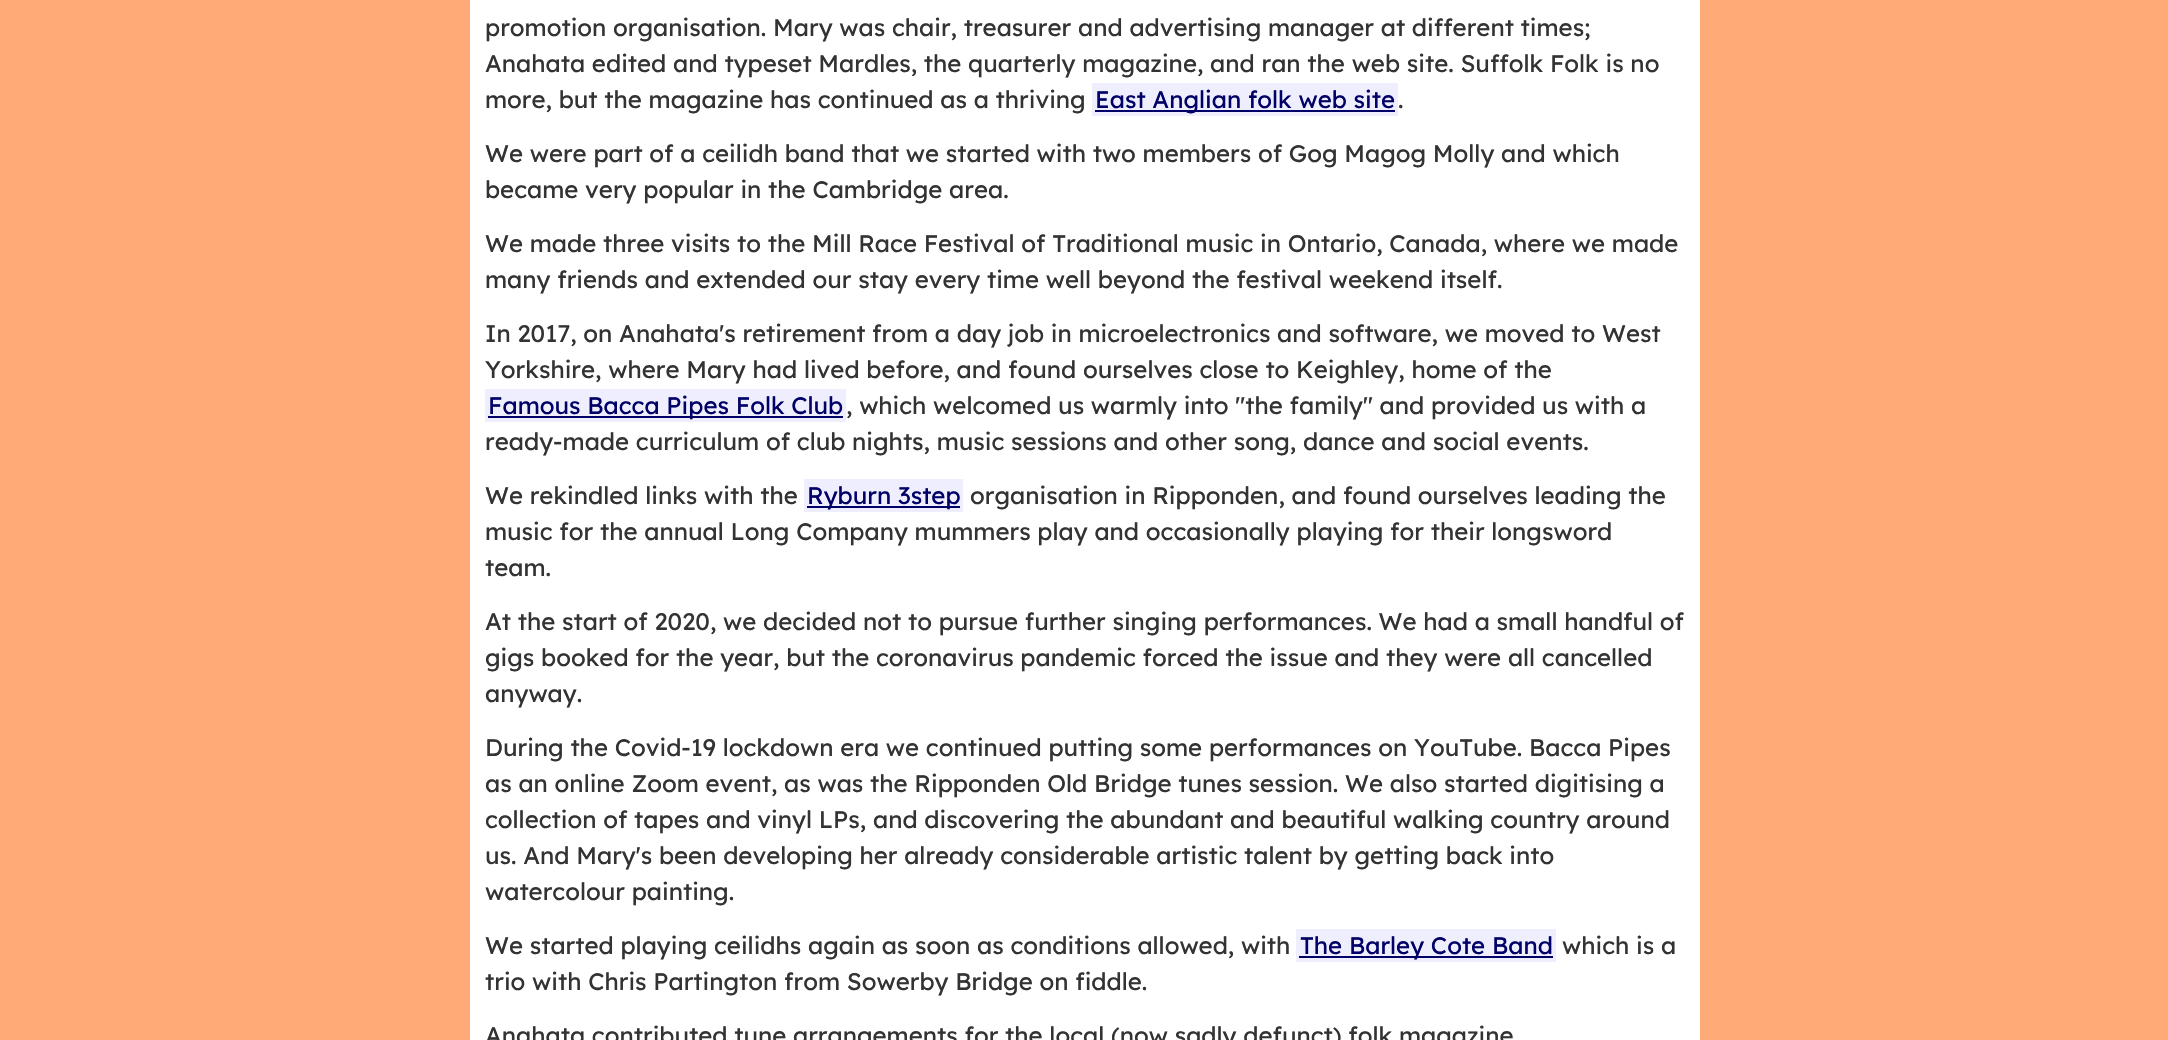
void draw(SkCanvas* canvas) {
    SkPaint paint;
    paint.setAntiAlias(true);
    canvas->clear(0xFFFFAA77);
    paint.setColor(0xFFFFFFFF);
    canvas->drawRect(SkRect::MakeXYWH(470, 0, 1230, 1040), paint);
    SkFont font1(fontMgr->matchFamilyStyle("Lexend", SkFontStyle::Normal()), 24);
    font1.setSubpixel(true);
    paint.setColor(0xFF333333);
    canvas->drawString("promotion organisation. Mary was chair, treasurer and advertising manager at different times;", 485, 36, font1, paint);
    canvas->drawString("Anahata edited and typeset Mardles, the quarterly magazine, and ran the web site. Suffolk Folk is no", 485, 72, font1, paint);
    canvas->drawString("more, but the magazine has continued as a thriving", 485, 108, font1, paint);
    paint.setColor(0xFFEEEEFF);
    canvas->drawRect(SkRect::MakeXYWH(1092, 83, 306, 33), paint);
    paint.setColor(0xFF000066);
    canvas->drawRect(SkRect::MakeXYWH(1095, 110, 300, 2), paint);
    canvas->drawString("East Anglian folk web site", 1095, 108, font1, paint);
    paint.setColor(0xFF333333);
    canvas->drawString(".", 1398, 108, font1, paint);
    canvas->drawString("We were part of a ceilidh band that we started with two members of Gog Magog Molly and which", 485, 162, font1, paint);
    canvas->drawString("became very popular in the Cambridge area.", 485, 198, font1, paint);
    canvas->drawString("We made three visits to the Mill Race Festival of Traditional music in Ontario, Canada, where we made", 485, 252, font1, paint);
    canvas->drawString("many friends and extended our stay every time well beyond the festival weekend itself.", 485, 288, font1, paint);
    canvas->drawString("In 2017, on Anahata's retirement from a day job in microelectronics and software, we moved to West", 485, 342, font1, paint);
    canvas->drawString("Yorkshire, where Mary had lived before, and found ourselves close to Keighley, home of the", 485, 378, font1, paint);
    paint.setColor(0xFFEEEEFF);
    canvas->drawRect(SkRect::MakeXYWH(485, 389, 361, 33), paint);
    paint.setColor(0xFF000066);
    canvas->drawRect(SkRect::MakeXYWH(488, 416, 355, 2), paint);
    canvas->drawString("Famous Bacca Pipes Folk Club", 488, 414, font1, paint);
    paint.setColor(0xFF333333);
    canvas->drawString(", which welcomed us warmly into \"the family\" and provided us with a", 846, 414, font1, paint);
    canvas->drawString("ready-made curriculum of club nights, music sessions and other song, dance and social events.", 485, 450, font1, paint);
    canvas->drawString("We rekindled links with the", 485, 504, font1, paint);
    paint.setColor(0xFFEEEEFF);
    canvas->drawRect(SkRect::MakeXYWH(804, 479, 159, 33), paint);
    paint.setColor(0xFF000066);
    canvas->drawRect(SkRect::MakeXYWH(807, 506, 153, 2), paint);
    canvas->drawString("Ryburn 3step", 807, 504, font1, paint);
    paint.setColor(0xFF333333);
    canvas->drawString("organisation in Ripponden, and found ourselves leading the", 970, 504, font1, paint);
    canvas->drawString("music for the annual Long Company mummers play and occasionally playing for their longsword", 485, 540, font1, paint);
    canvas->drawString("team.", 485, 576, font1, paint);
    canvas->drawString("At the start of 2020, we decided not to pursue further singing performances. We had a small handful of", 485, 630, font1, paint);
    canvas->drawString("gigs booked for the year, but the coronavirus pandemic forced the issue and they were all cancelled", 485, 666, font1, paint);
    canvas->drawString("anyway.", 485, 702, font1, paint);
    canvas->drawString("During the Covid-19 lockdown era we continued putting some performances on YouTube. Bacca Pipes", 485, 756, font1, paint);
    canvas->drawString("as an online Zoom event, as was the Ripponden Old Bridge tunes session. We also started digitising a", 485, 792, font1, paint);
    canvas->drawString("collection of tapes and vinyl LPs, and discovering the abundant and beautiful walking country around", 485, 828, font1, paint);
    canvas->drawString("us. And Mary's been developing her already considerable artistic talent by getting back into", 485, 864, font1, paint);
    canvas->drawString("watercolour painting.", 485, 900, font1, paint);
    canvas->drawString("We started playing ceilidhs again as soon as conditions allowed, with", 485, 954, font1, paint);
    paint.setColor(0xFFEEEEFF);
    canvas->drawRect(SkRect::MakeXYWH(1296, 929, 260, 33), paint);
    paint.setColor(0xFF000066);
    canvas->drawRect(SkRect::MakeXYWH(1299, 956, 254, 2), paint);
    canvas->drawString("The Barley Cote Band", 1300, 954, font1, paint);
    paint.setColor(0xFF333333);
    canvas->drawString("which is a", 1562, 954, font1, paint);
    canvas->drawString("trio with Chris Partington from Sowerby Bridge on fiddle.", 485, 990, font1, paint);
    canvas->drawString("Anahata contributed tune arrangements for the local (now sadly defunct) folk magazine", 485, 1044, font1, paint);
}
